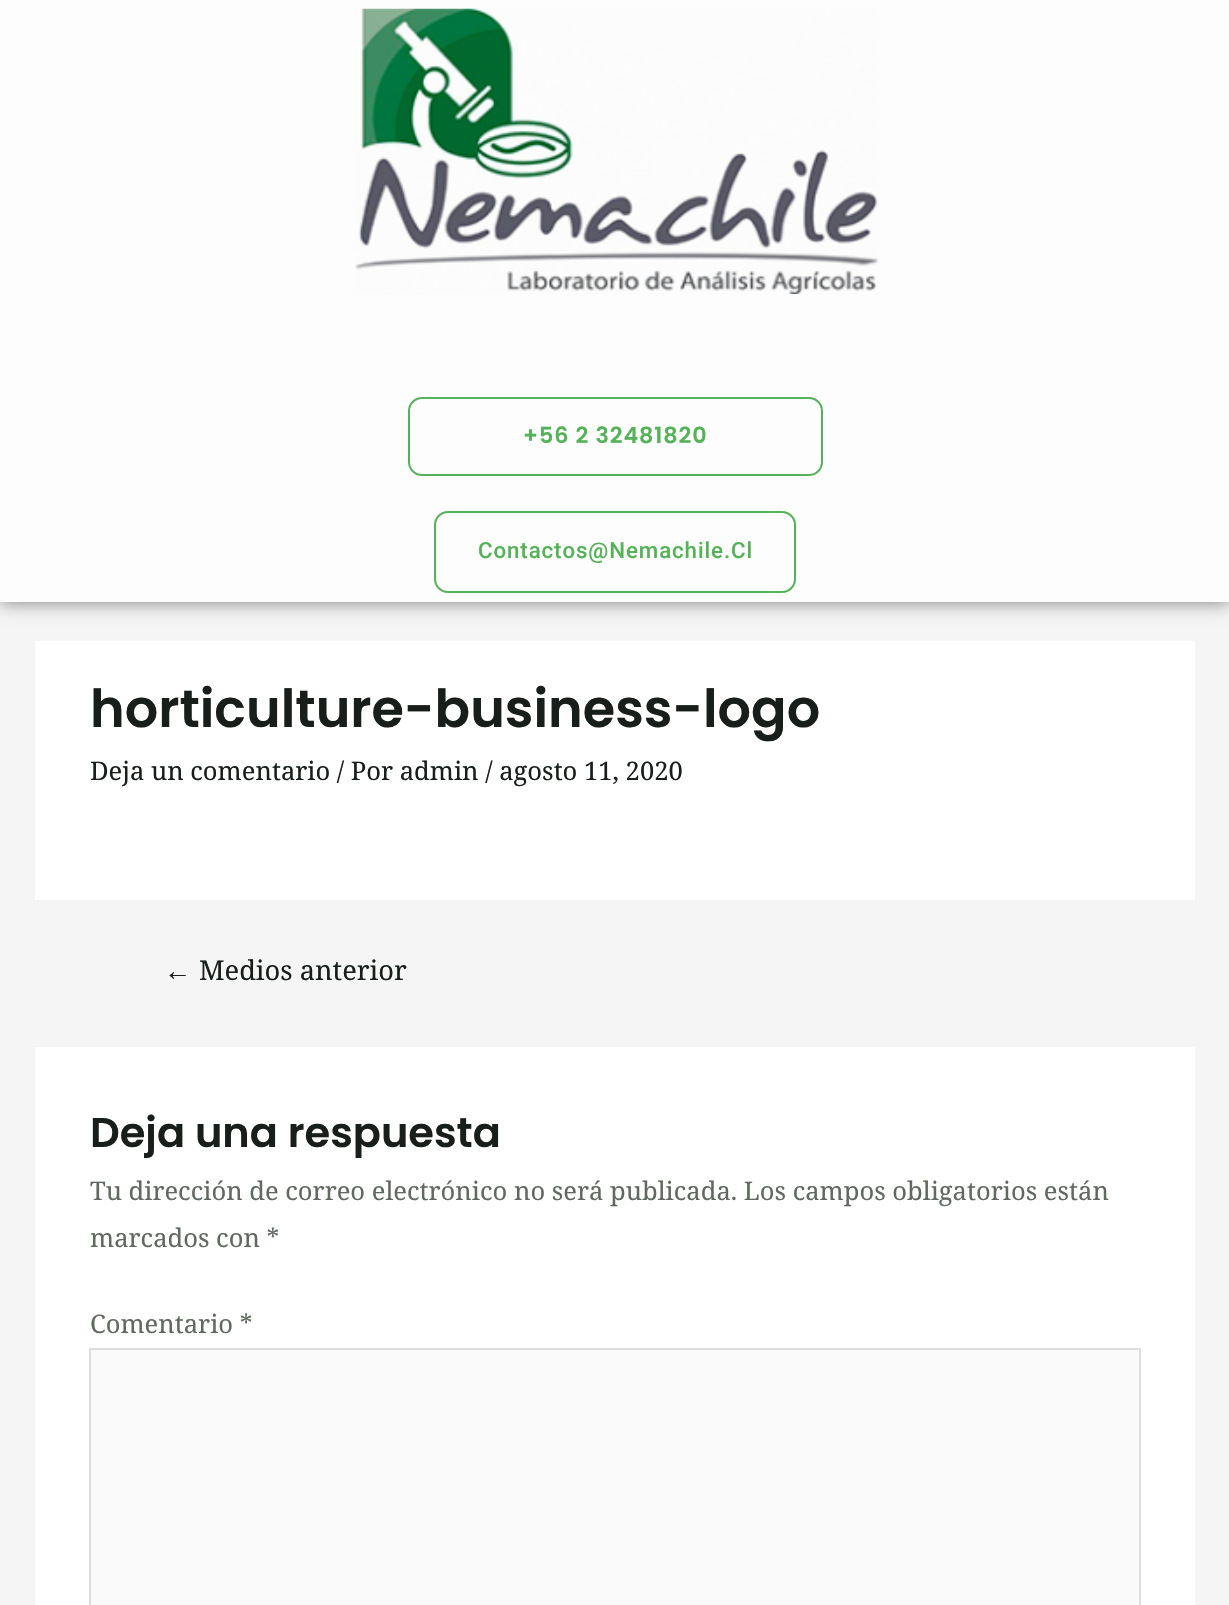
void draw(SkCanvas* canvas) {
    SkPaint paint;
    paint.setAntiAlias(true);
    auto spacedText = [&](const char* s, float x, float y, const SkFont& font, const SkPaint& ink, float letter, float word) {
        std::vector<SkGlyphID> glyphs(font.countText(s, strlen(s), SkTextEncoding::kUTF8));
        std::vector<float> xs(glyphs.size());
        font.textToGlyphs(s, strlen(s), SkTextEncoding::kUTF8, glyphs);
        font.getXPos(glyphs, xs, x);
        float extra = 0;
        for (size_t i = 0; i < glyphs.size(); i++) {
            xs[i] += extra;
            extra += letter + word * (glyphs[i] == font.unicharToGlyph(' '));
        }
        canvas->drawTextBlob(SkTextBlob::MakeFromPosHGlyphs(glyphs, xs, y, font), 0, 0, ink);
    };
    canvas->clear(0xFFF5F5F5);
    paint.setColor(0x80000000);
    paint.setMaskFilter(SkMaskFilter::MakeBlur(kNormal_SkBlurStyle, 9));
    canvas->drawRect(SkRect::MakeXYWH(0, 0, 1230, 602), paint);
    paint.setMaskFilter(nullptr);
    paint.setColor(0xFFFDFDFD);
    canvas->drawRect(SkRect::MakeXYWH(0, 0, 1229, 602), paint);
    canvas->drawImageRect(SkImages::DeferredFromEncodedData(SkData::MakeFromFileName("img1.png")), SkRect::MakeXYWH(355, 8, 524, 286), SkSamplingOptions());
    paint.setStyle(SkPaint::kStroke_Style);
    paint.setStrokeWidth(2);
    paint.setColor(0xFF56B259);
    canvas->drawRoundRect(SkRect::MakeXYWH(409, 398, 413, 77), 13, 13, paint);
    SkFont font1(fontMgr->matchFamilyStyle("Poppins", SkFontStyle(600, SkFontStyle::kNormal_Width, SkFontStyle::kUpright_Slant)), 22.3f);
    font1.setSubpixel(true);
    paint.setStyle(SkPaint::kFill_Style);
    spacedText("+56 2 32481820", 523, 443, font1, paint, 0.9f, 0);
    paint.setStyle(SkPaint::kStroke_Style);
    canvas->drawRoundRect(SkRect::MakeXYWH(435, 512, 360, 80), 13, 13, paint);
    SkFont font2(fontMgr->matchFamilyStyle("Roboto", SkFontStyle(500, SkFontStyle::kNormal_Width, SkFontStyle::kUpright_Slant)), 22.3f);
    font2.setSubpixel(true);
    paint.setStyle(SkPaint::kFill_Style);
    spacedText("Contactos@Nemachile.Cl", 478, 558, font2, paint, 0.9f, 0);
    paint.setColor(0xFFFFFFFF);
    canvas->drawRect(SkRect::MakeXYWH(35, 641, 1160, 259), paint);
    SkFont font3(fontMgr->matchFamilyStyle("Poppins", SkFontStyle(600, SkFontStyle::kNormal_Width, SkFontStyle::kUpright_Slant)), 52.5f);
    font3.setSubpixel(true);
    paint.setColor(0xFF181E19);
    canvas->drawString("horticulture-business-logo", 90, 727, font3, paint);
    SkFont font4(fontMgr->matchFamilyStyle("Noto Serif", SkFontStyle::Normal()), 25.55f);
    font4.setSubpixel(true);
    canvas->drawString("Deja un comentario / Por admin / agosto 11, 2020", 90, 780, font4, paint);
    SkFont font5(fontMgr->matchFamilyStyle("Liberation Serif", SkFontStyle::Normal()), 27.25f);
    font5.setSubpixel(true);
    canvas->drawString("←", 164, 980, font5, paint);
    SkFont font6(fontMgr->matchFamilyStyle("Noto Serif", SkFontStyle::Normal()), 27.25f);
    font6.setSubpixel(true);
    canvas->drawString("Medios anterior", 199, 980, font6, paint);
    paint.setColor(0xFFFFFFFF);
    canvas->drawRect(SkRect::MakeXYWH(35, 1047, 1160, 558), paint);
    SkFont font7(fontMgr->matchFamilyStyle("Poppins", SkFontStyle(600, SkFontStyle::kNormal_Width, SkFontStyle::kUpright_Slant)), 41.5f);
    font7.setSubpixel(true);
    paint.setColor(0xFF181E19);
    canvas->drawString("Deja una respuesta", 90, 1147, font7, paint);
    paint.setColor(0xFF5F695F);
    canvas->drawString("Tu dirección de correo electrónico no será publicada. Los campos obligatorios están", 90, 1200, font4, paint);
    canvas->drawString("marcados con *", 90, 1247, font4, paint);
    canvas->drawString("Comentario *", 90, 1333, font4, paint);
    paint.setColor(0xFFFAFAFA);
    canvas->drawRect(SkRect::MakeXYWH(90, 1349, 1050, 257), paint);
    paint.setStyle(SkPaint::kStroke_Style);
    paint.setColor(0xFFDDDDDD);
    canvas->drawRect(SkRect::MakeXYWH(90, 1349, 1050, 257), paint);
}
